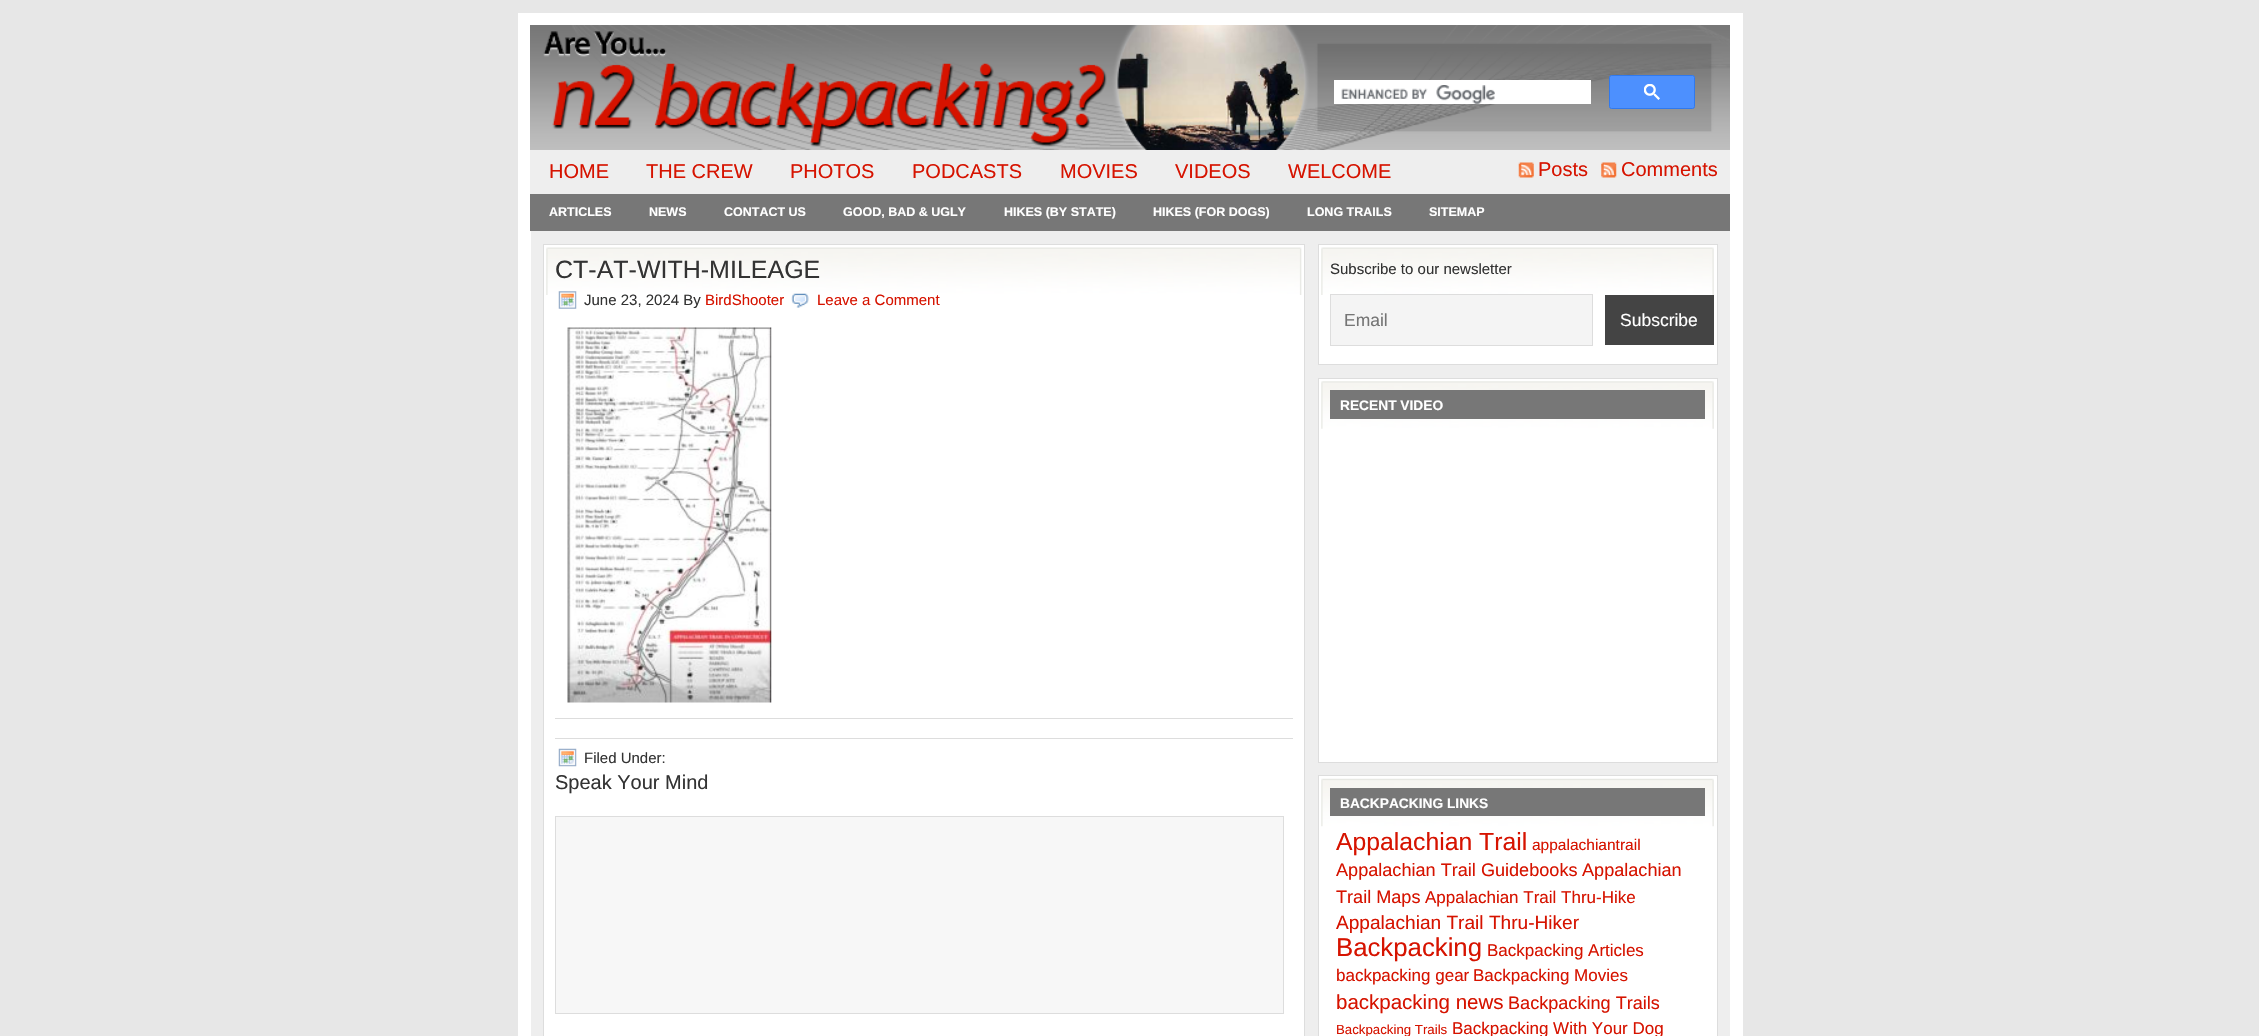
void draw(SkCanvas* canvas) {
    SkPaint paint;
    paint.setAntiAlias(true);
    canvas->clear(0xFFE7E7E7);
    paint.setColor(0xFFEEEEEE);
    canvas->drawRect(SkRect::MakeXYWH(531, 231, 1199, 805), paint);
    paint.setStyle(SkPaint::kStroke_Style);
    paint.setStrokeWidth(13);
    paint.setColor(0xFFFFFFFF);
    canvas->drawRect(SkRect::MakeXYWH(524.5f, 19.5f, 1212, 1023), paint);
    canvas->drawImageRect(SkImages::DeferredFromEncodedData(SkData::MakeFromFileName("img1.png")), SkRect::MakeXYWH(530, 25, 1200, 125), SkSamplingOptions());
    paint.setStyle(SkPaint::kFill_Style);
    canvas->drawRect(SkRect::MakeXYWH(1334, 80, 257, 24), paint);
    canvas->drawImageRect(SkImages::DeferredFromEncodedData(SkData::MakeFromFileName("img2.png")), SkRect::MakeXYWH(1341, 85, 154, 19), SkSamplingOptions());
    paint.setColor(0xFF4D90FE);
    canvas->drawRoundRect(SkRect::MakeXYWH(1609.5f, 75.5f, 85, 33), 2, 2, paint);
    paint.setStyle(SkPaint::kStroke_Style);
    paint.setStrokeWidth(1);
    paint.setColor(0xFF3079ED);
    canvas->drawRoundRect(SkRect::MakeXYWH(1609.5f, 75.5f, 85, 33), 2, 2, paint);
    canvas->drawImageRect(SkImages::DeferredFromEncodedData(SkData::MakeFromFileName("img3.png")), SkRect::MakeXYWH(1644, 84, 16, 16), SkSamplingOptions());
    paint.setStyle(SkPaint::kFill_Style);
    paint.setColor(0xFFEEEEEE);
    canvas->drawRect(SkRect::MakeXYWH(530, 150, 1200, 44), paint);
    SkFont font1(fontMgr->matchFamilyStyle("Liberation Sans", SkFontStyle::Normal()), 20);
    font1.setSubpixel(true);
    paint.setColor(0xFFD61300);
    canvas->drawString("HOME", 549, 178, font1, paint);
    canvas->drawString("THE CREW", 646, 178, font1, paint);
    canvas->drawString("PHOTOS", 790, 178, font1, paint);
    canvas->drawString("PODCASTS", 912, 178, font1, paint);
    canvas->drawString("MOVIES", 1060, 178, font1, paint);
    canvas->drawString("VIDEOS", 1175, 178, font1, paint);
    canvas->drawString("WELCOME", 1288, 178, font1, paint);
    canvas->drawImageRect(SkImages::DeferredFromEncodedData(SkData::MakeFromFileName("img4.png")), SkRect::MakeXYWH(1518, 162, 16, 16), SkSamplingOptions());
    canvas->drawString("Posts", 1538, 176, font1, paint);
    canvas->drawImageRect(SkImages::DeferredFromEncodedData(SkData::MakeFromFileName("img5.png")), SkRect::MakeXYWH(1601, 162, 16, 16), SkSamplingOptions());
    canvas->drawString("Comments", 1621, 176, font1, paint);
    paint.setColor(0xFF777777);
    canvas->drawRect(SkRect::MakeXYWH(530, 194, 1200, 37), paint);
    SkFont font2(fontMgr->matchFamilyStyle("Liberation Sans", SkFontStyle::Bold()), 12.5f);
    font2.setSubpixel(true);
    paint.setColor(0xFFFFFFFF);
    canvas->drawString("ARTICLES", 549, 216, font2, paint);
    canvas->drawString("NEWS", 649, 216, font2, paint);
    canvas->drawString("CONTACT US", 724, 216, font2, paint);
    canvas->drawString("GOOD, BAD & UGLY", 843, 216, font2, paint);
    canvas->drawString("HIKES (BY STATE)", 1004, 216, font2, paint);
    canvas->drawString("HIKES (FOR DOGS)", 1153, 216, font2, paint);
    canvas->drawString("LONG TRAILS", 1307, 216, font2, paint);
    canvas->drawString("SITEMAP", 1429, 216, font2, paint);
    canvas->drawRect(SkRect::MakeXYWH(544, 245, 760, 791), paint);
    canvas->drawImageRect(SkImages::DeferredFromEncodedData(SkData::MakeFromFileName("img6.png")), SkRect::MakeXYWH(546, 247, 756, 48), SkSamplingOptions());
    paint.setStyle(SkPaint::kStroke_Style);
    paint.setColor(0xFFDDDDDD);
    canvas->drawRect(SkRect::MakeXYWH(543.5f, 244.5f, 761, 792), paint);
    SkFont font3(fontMgr->matchFamilyStyle("Liberation Sans", SkFontStyle::Normal()), 25);
    font3.setSubpixel(true);
    paint.setStyle(SkPaint::kFill_Style);
    paint.setColor(0xFF333333);
    canvas->drawString("CT-AT-WITH-MILEAGE", 555, 278, font3, paint);
    canvas->drawImageRect(SkImages::DeferredFromEncodedData(SkData::MakeFromFileName("img7.png")), SkRect::MakeXYWH(558, 291, 19, 18), SkSamplingOptions());
    SkFont font4(fontMgr->matchFamilyStyle("Liberation Sans", SkFontStyle::Normal()), 15);
    font4.setSubpixel(true);
    canvas->drawString("June 23, 2024 By", 584, 305, font4, paint);
    paint.setColor(0xFFD61300);
    canvas->drawString("BirdShooter", 705, 305, font4, paint);
    canvas->drawImageRect(SkImages::DeferredFromEncodedData(SkData::MakeFromFileName("img8.png")), SkRect::MakeXYWH(791, 293, 18, 15), SkSamplingOptions());
    canvas->drawString("Leave a Comment", 817, 305, font4, paint);
    canvas->drawImageRect(SkImages::DeferredFromEncodedData(SkData::MakeFromFileName("img9.png")), SkRect::MakeXYWH(567, 327, 205, 376), SkSamplingOptions());
    paint.setColor(0xFFDDDDDD);
    canvas->drawRect(SkRect::MakeXYWH(555, 718, 738, 1), paint);
    canvas->drawRect(SkRect::MakeXYWH(555, 738, 738, 1), paint);
    canvas->drawImageRect(SkImages::DeferredFromEncodedData(SkData::MakeFromFileName("img10.png")), SkRect::MakeXYWH(558, 748, 19, 19), SkSamplingOptions());
    paint.setColor(0xFF333333);
    canvas->drawString("Filed Under:", 584, 763, font4, paint);
    canvas->drawString("Speak Your Mind", 555, 789, font1, paint);
    paint.setColor(0xFFF7F7F7);
    canvas->drawRect(SkRect::MakeXYWH(555.5f, 816.5f, 728, 197), paint);
    paint.setStyle(SkPaint::kStroke_Style);
    paint.setColor(0xFFDDDDDD);
    canvas->drawRect(SkRect::MakeXYWH(555.5f, 816.5f, 728, 197), paint);
    paint.setStyle(SkPaint::kFill_Style);
    paint.setColor(0xFFFFFFFF);
    canvas->drawRect(SkRect::MakeXYWH(1319, 245, 398, 119), paint);
    canvas->drawImageRect(SkImages::DeferredFromEncodedData(SkData::MakeFromFileName("img11.png")), SkRect::MakeXYWH(1321, 247, 393, 48), SkSamplingOptions());
    paint.setStyle(SkPaint::kStroke_Style);
    paint.setColor(0xFFDDDDDD);
    canvas->drawRect(SkRect::MakeXYWH(1318.5f, 244.5f, 399, 120), paint);
    paint.setStyle(SkPaint::kFill_Style);
    paint.setColor(0xFF333333);
    canvas->drawString("Subscribe to our newsletter", 1330, 274, font4, paint);
    paint.setColor(0xFFF4F4F4);
    canvas->drawRect(SkRect::MakeXYWH(1330.5f, 294.5f, 262, 51), paint);
    paint.setStyle(SkPaint::kStroke_Style);
    paint.setColor(0xFFDDDDDD);
    canvas->drawRect(SkRect::MakeXYWH(1330.5f, 294.5f, 262, 51), paint);
    SkFont font5(fontMgr->matchFamilyStyle("Liberation Sans", SkFontStyle::Normal()), 17.5f);
    font5.setSubpixel(true);
    paint.setStyle(SkPaint::kFill_Style);
    paint.setColor(0xFF757575);
    canvas->drawString("Email", 1344, 326, font5, paint);
    paint.setColor(0xFF444444);
    canvas->drawRect(SkRect::MakeXYWH(1605, 295, 109, 50), paint);
    paint.setColor(0xFFFFFFFF);
    canvas->drawString("Subscribe", 1620, 326, font5, paint);
    canvas->drawRect(SkRect::MakeXYWH(1319, 379, 398, 383), paint);
    canvas->drawImageRect(SkImages::DeferredFromEncodedData(SkData::MakeFromFileName("img12.png")), SkRect::MakeXYWH(1321, 381, 393, 48), SkSamplingOptions());
    paint.setStyle(SkPaint::kStroke_Style);
    paint.setColor(0xFFDDDDDD);
    canvas->drawRect(SkRect::MakeXYWH(1318.5f, 378.5f, 399, 384), paint);
    paint.setStyle(SkPaint::kFill_Style);
    paint.setColor(0xFF777777);
    canvas->drawRect(SkRect::MakeXYWH(1330, 390, 375, 29), paint);
    SkFont font6(fontMgr->matchFamilyStyle("Liberation Sans", SkFontStyle::Bold()), 13.75f);
    font6.setSubpixel(true);
    paint.setColor(0xFFFFFFFF);
    canvas->drawString("RECENT VIDEO", 1340, 410, font6, paint);
    canvas->drawRect(SkRect::MakeXYWH(1319, 776, 398, 260), paint);
    canvas->drawImageRect(SkImages::DeferredFromEncodedData(SkData::MakeFromFileName("img13.png")), SkRect::MakeXYWH(1321, 778, 393, 49), SkSamplingOptions());
    paint.setStyle(SkPaint::kStroke_Style);
    paint.setColor(0xFFDDDDDD);
    canvas->drawRect(SkRect::MakeXYWH(1318.5f, 775.5f, 399, 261), paint);
    paint.setStyle(SkPaint::kFill_Style);
    paint.setColor(0xFF777777);
    canvas->drawRect(SkRect::MakeXYWH(1330, 788, 375, 28), paint);
    paint.setColor(0xFFFFFFFF);
    canvas->drawString("BACKPACKING LINKS", 1340, 808, font6, paint);
    SkFont font7(fontMgr->matchFamilyStyle("Liberation Sans", SkFontStyle::Normal()), 24.75f);
    font7.setSubpixel(true);
    paint.setColor(0xFFD61300);
    canvas->drawString("Appalachian Trail", 1336, 850, font7, paint);
    SkFont font8(fontMgr->matchFamilyStyle("Liberation Sans", SkFontStyle::Normal()), 15.5f);
    font8.setSubpixel(true);
    canvas->drawString("appalachiantrail", 1532, 850, font8, paint);
    SkFont font9(fontMgr->matchFamilyStyle("Liberation Sans", SkFontStyle::Normal()), 18.1f);
    font9.setSubpixel(true);
    canvas->drawString("Appalachian Trail Guidebooks", 1336, 876, font9, paint);
    canvas->drawString("Appalachian", 1582, 876, font9, paint);
    canvas->drawString("Trail Maps", 1336, 903, font9, paint);
    SkFont font10(fontMgr->matchFamilyStyle("Liberation Sans", SkFontStyle::Normal()), 17);
    font10.setSubpixel(true);
    canvas->drawString("Appalachian Trail Thru-Hike", 1425, 903, font10, paint);
    SkFont font11(fontMgr->matchFamilyStyle("Liberation Sans", SkFontStyle::Normal()), 19.1f);
    font11.setSubpixel(true);
    canvas->drawString("Appalachian Trail Thru-Hiker", 1336, 929, font11, paint);
    SkFont font12(fontMgr->matchFamilyStyle("Liberation Sans", SkFontStyle::Normal()), 25.75f);
    font12.setSubpixel(true);
    canvas->drawString("Backpacking", 1336, 956, font12, paint);
    canvas->drawString("Backpacking Articles", 1487, 956, font10, paint);
    canvas->drawString("backpacking gear", 1336, 981, font10, paint);
    canvas->drawString("Backpacking Movies", 1473, 981, font10, paint);
    SkFont font13(fontMgr->matchFamilyStyle("Liberation Sans", SkFontStyle::Normal()), 20.5f);
    font13.setSubpixel(true);
    canvas->drawString("backpacking news", 1336, 1009, font13, paint);
    canvas->drawString("Backpacking Trails", 1508, 1009, font9, paint);
    SkFont font14(fontMgr->matchFamilyStyle("Liberation Sans", SkFontStyle::Normal()), 13.25f);
    font14.setSubpixel(true);
    canvas->drawString("Backpacking Trails", 1336, 1034, font14, paint);
    canvas->drawString("Backpacking With Your Dog", 1452, 1034, font10, paint);
}
